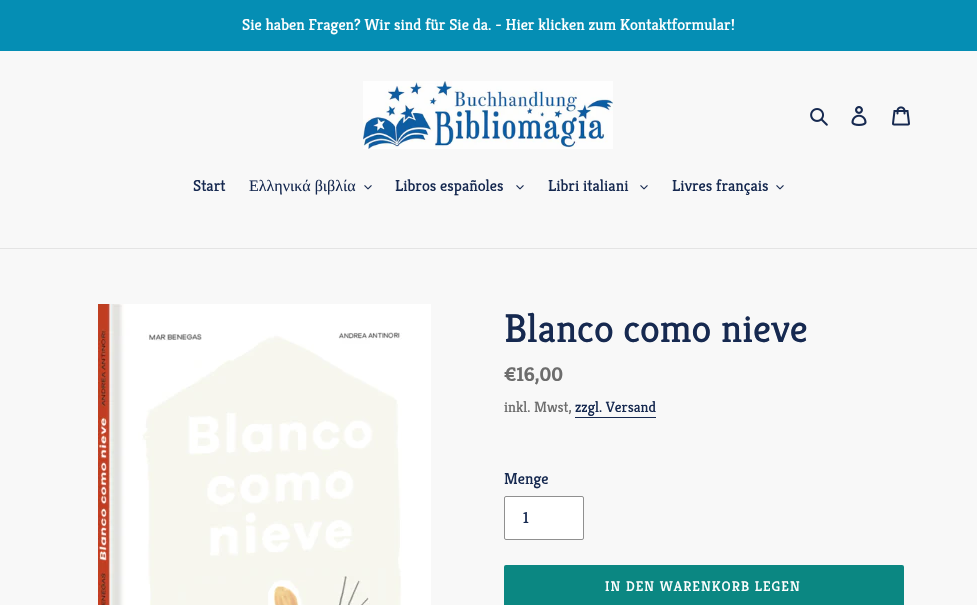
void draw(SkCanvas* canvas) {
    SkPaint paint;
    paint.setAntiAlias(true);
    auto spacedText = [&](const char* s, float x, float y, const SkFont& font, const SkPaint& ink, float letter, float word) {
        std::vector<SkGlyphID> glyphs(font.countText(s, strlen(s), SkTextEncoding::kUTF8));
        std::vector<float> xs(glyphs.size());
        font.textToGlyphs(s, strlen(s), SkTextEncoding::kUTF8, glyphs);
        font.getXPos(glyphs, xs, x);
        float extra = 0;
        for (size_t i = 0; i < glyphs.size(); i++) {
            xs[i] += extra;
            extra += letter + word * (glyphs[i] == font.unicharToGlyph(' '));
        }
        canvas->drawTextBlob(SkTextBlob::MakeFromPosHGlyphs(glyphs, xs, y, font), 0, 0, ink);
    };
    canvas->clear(0xFFF8F8F8);
    paint.setColor(0xFF058EB4);
    canvas->drawRect(SkRect::MakeXYWH(0, 0, 977, 51), paint);
    SkFont font1(fontMgr->matchFamilyStyle("Kreon", SkFontStyle::Normal()), 16);
    font1.setSubpixel(true);
    paint.setColor(0xFFFFFFFF);
    canvas->drawString("Sie haben Fragen? Wir sind für Sie da. - Hier klicken zum Kontaktformular!", 242, 30, font1, paint);
    canvas->drawImageRect(SkImages::DeferredFromEncodedData(SkData::MakeFromFileName("img1.png")), SkRect::MakeXYWH(363, 81, 250, 68), SkSamplingOptions());
    canvas->drawImageRect(SkImages::DeferredFromEncodedData(SkData::MakeFromFileName("img2.png")), SkRect::MakeXYWH(810, 108, 18, 18), SkSamplingOptions());
    canvas->drawImageRect(SkImages::DeferredFromEncodedData(SkData::MakeFromFileName("img3.png")), SkRect::MakeXYWH(851, 106, 16, 20), SkSamplingOptions());
    canvas->drawImageRect(SkImages::DeferredFromEncodedData(SkData::MakeFromFileName("img4.png")), SkRect::MakeXYWH(892, 106, 18, 20), SkSamplingOptions());
    paint.setColor(0xFFE4E4E4);
    canvas->drawRect(SkRect::MakeXYWH(0, 248, 977, 1), paint);
    paint.setColor(0xFF162950);
    canvas->drawString("Start", 193, 191, font1, paint);
    SkFont font2(fontMgr->matchFamilyStyle("Liberation Serif", SkFontStyle::Normal()), 16);
    font2.setSubpixel(true);
    canvas->drawString("Ελληνικά βιβλία", 249, 191, font2, paint);
    canvas->drawImageRect(SkImages::DeferredFromEncodedData(SkData::MakeFromFileName("img5.png")), SkRect::MakeXYWH(364, 185, 8, 5), SkSamplingOptions());
    canvas->drawString("Libros españoles", 395, 191, font1, paint);
    canvas->drawImageRect(SkImages::DeferredFromEncodedData(SkData::MakeFromFileName("img5.png")), SkRect::MakeXYWH(516, 185, 8, 5), SkSamplingOptions());
    canvas->drawString("Libri italiani", 548, 191, font1, paint);
    canvas->drawImageRect(SkImages::DeferredFromEncodedData(SkData::MakeFromFileName("img5.png")), SkRect::MakeXYWH(640, 185, 8, 5), SkSamplingOptions());
    canvas->drawString("Livres français", 672, 191, font1, paint);
    canvas->drawImageRect(SkImages::DeferredFromEncodedData(SkData::MakeFromFileName("img5.png")), SkRect::MakeXYWH(776, 185, 8, 5), SkSamplingOptions());
    canvas->drawImageRect(SkImages::DeferredFromEncodedData(SkData::MakeFromFileName("img6.png")), SkRect::MakeXYWH(98, 304, 333, 301), SkSamplingOptions());
    SkFont font3(fontMgr->matchFamilyStyle("Kreon", SkFontStyle::Normal()), 40);
    font3.setSubpixel(true);
    canvas->drawString("Blanco como nieve", 504, 342, font3, paint);
    SkFont font4(fontMgr->matchFamilyStyle("Kreon", SkFontStyle::Bold()), 20);
    font4.setSubpixel(true);
    paint.setColor(0xFF6D6D6D);
    canvas->drawString("€16,00", 504, 381, font4, paint);
    SkFont font5(fontMgr->matchFamilyStyle("Kreon", SkFontStyle::Normal()), 15);
    font5.setSubpixel(true);
    canvas->drawString("inkl. Mwst,", 504, 412, font5, paint);
    paint.setColor(0xFF162950);
    canvas->drawString("zzgl. Versand", 575, 412, font5, paint);
    canvas->drawRect(SkRect::MakeXYWH(575, 417, 81, 1), paint);
    canvas->drawString("Menge", 504, 484, font1, paint);
    paint.setColor(0xFFFFFFFF);
    canvas->drawRoundRect(SkRect::MakeXYWH(504.5f, 496.5f, 79, 43), 1.5f, 1.5f, paint);
    paint.setStyle(SkPaint::kStroke_Style);
    paint.setStrokeWidth(1);
    paint.setColor(0xFF909090);
    canvas->drawRoundRect(SkRect::MakeXYWH(504.5f, 496.5f, 79, 43), 1.5f, 1.5f, paint);
    paint.setStyle(SkPaint::kFill_Style);
    paint.setColor(0xFF162950);
    canvas->drawString("1", 523, 523, font1, paint);
    paint.setColor(0xFF0B8782);
    canvas->drawRoundRect(SkRect::MakeXYWH(504, 565, 400, 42), 2, 2, paint);
    SkFont font6(fontMgr->matchFamilyStyle("Kreon", SkFontStyle::Normal()), 14);
    font6.setSubpixel(true);
    paint.setColor(0xFFFFFFFF);
    spacedText("IN DEN WARENKORB LEGEN", 605, 591, font6, paint, 1.1f, 0);
}
